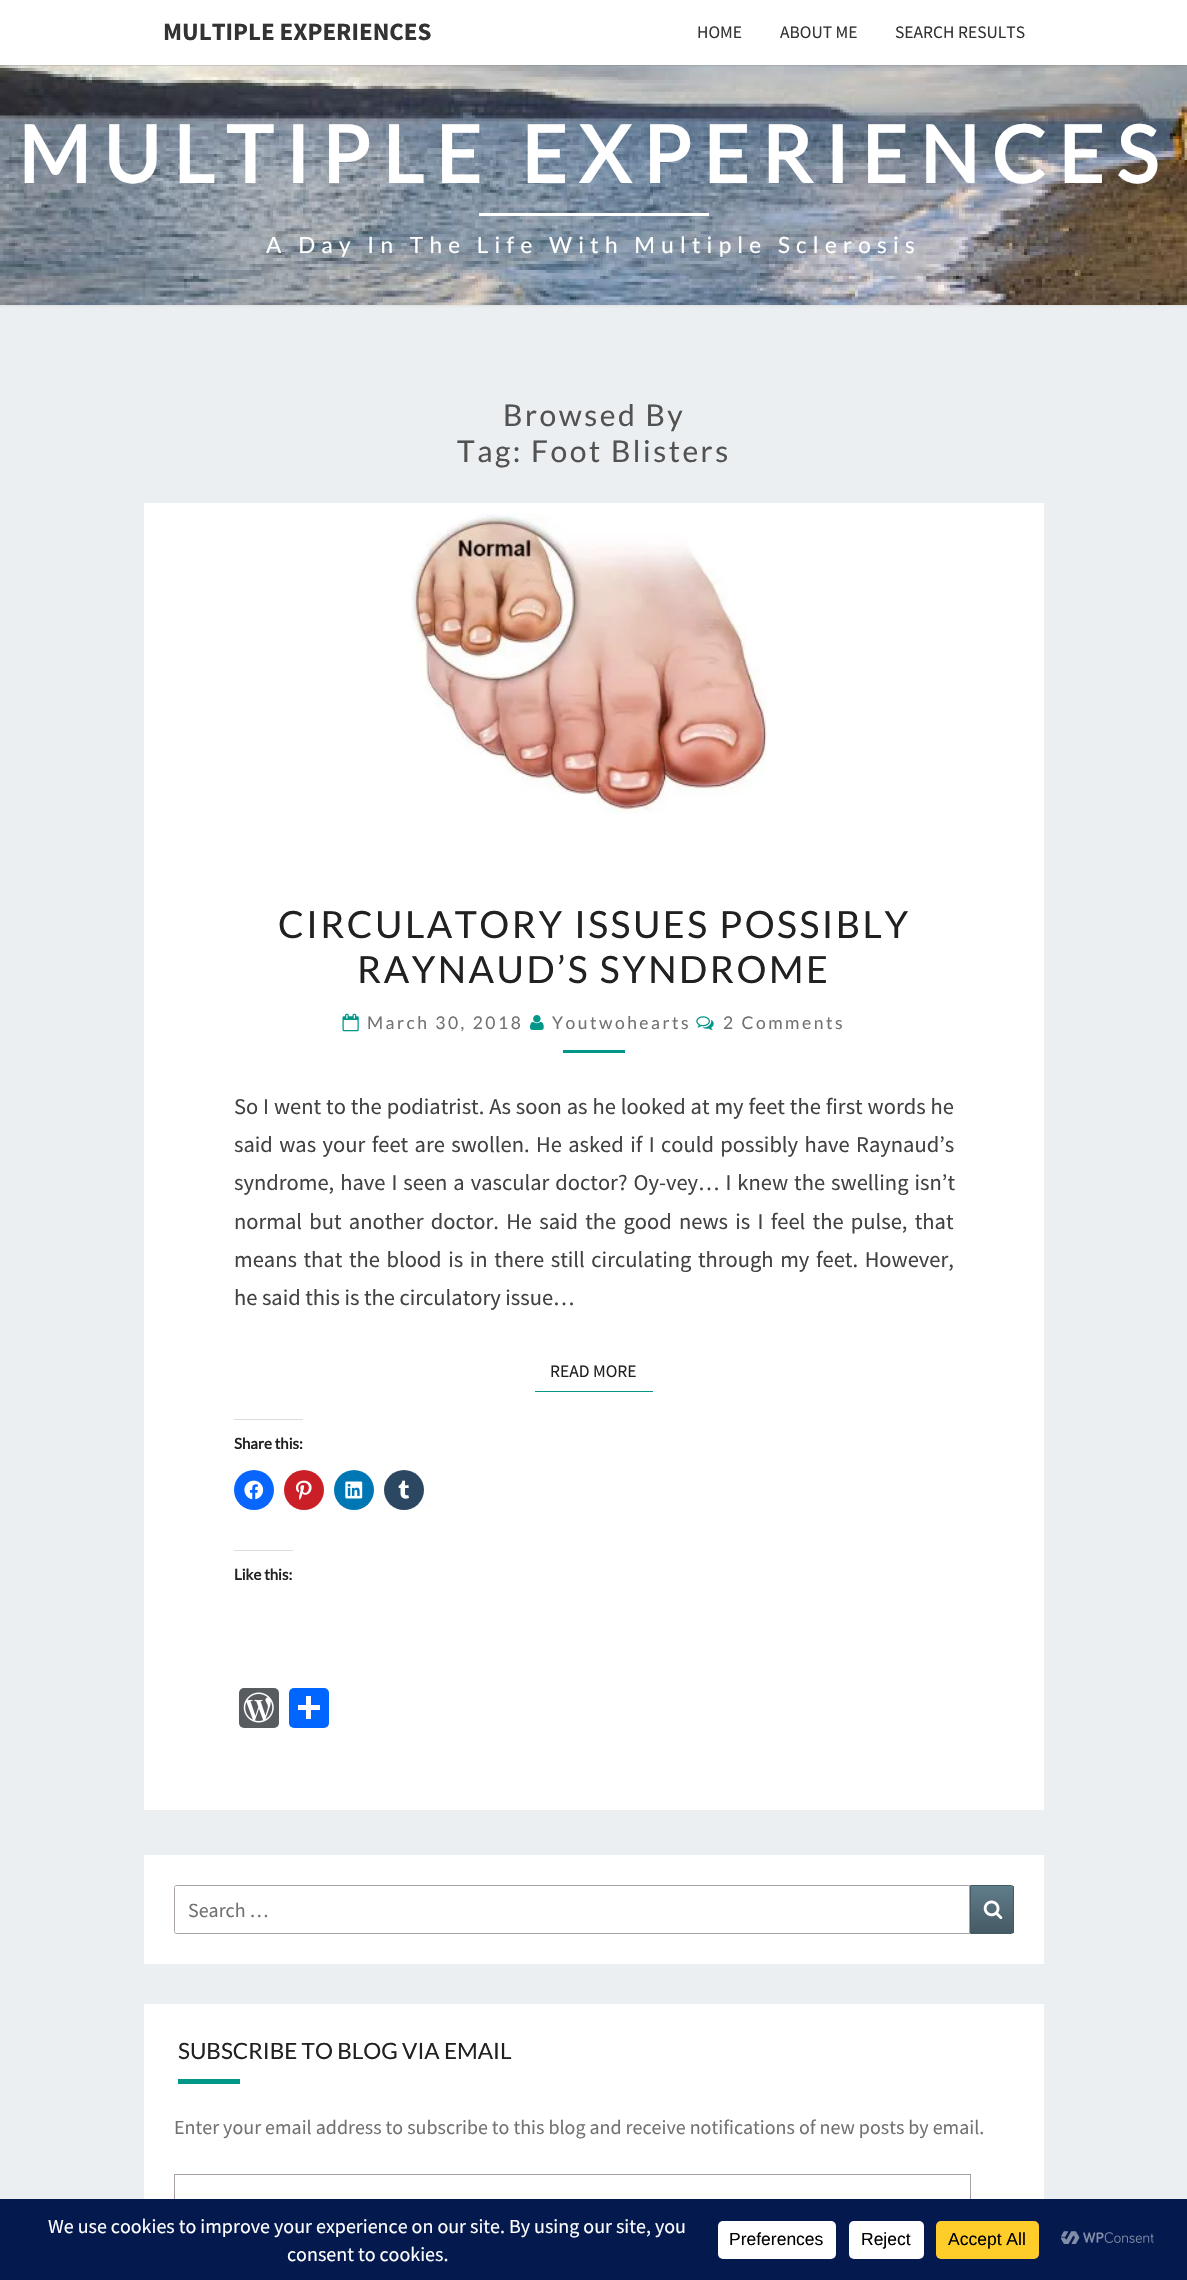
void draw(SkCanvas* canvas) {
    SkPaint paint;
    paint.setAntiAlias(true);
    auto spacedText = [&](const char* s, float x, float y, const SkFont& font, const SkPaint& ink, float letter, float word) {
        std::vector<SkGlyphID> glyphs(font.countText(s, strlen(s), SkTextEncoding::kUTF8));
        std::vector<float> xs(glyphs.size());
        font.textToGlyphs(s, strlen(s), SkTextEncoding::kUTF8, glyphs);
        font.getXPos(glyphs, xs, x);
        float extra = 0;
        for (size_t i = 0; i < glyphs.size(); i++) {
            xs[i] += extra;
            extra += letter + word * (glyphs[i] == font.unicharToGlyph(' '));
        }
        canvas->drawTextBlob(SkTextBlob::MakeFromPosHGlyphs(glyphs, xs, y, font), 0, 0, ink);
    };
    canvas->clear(0xFFECEFF1);
    paint.setColor(0x4DB6B6B6);
    paint.setMaskFilter(SkMaskFilter::MakeBlur(kNormal_SkBlurStyle, 1));
    canvas->drawRect(SkRect::MakeXYWH(-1, 64, 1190, 242), paint);
    paint.setMaskFilter(nullptr);
    canvas->drawImageRect(SkImages::DeferredFromEncodedData(SkData::MakeFromFileName("img1.png")), SkRect::MakeXYWH(0, 65, 1187, 240), SkSamplingOptions());
    paint.setColor(0x33646464);
    paint.setMaskFilter(SkMaskFilter::MakeBlur(kNormal_SkBlurStyle, 0.5f));
    canvas->drawRect(SkRect::MakeXYWH(0, 1, 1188, 65), paint);
    paint.setMaskFilter(nullptr);
    paint.setColor(0xFFFFFFFF);
    canvas->drawRect(SkRect::MakeXYWH(0, 0, 1187, 65), paint);
    SkFont font1(fontMgr->matchFamilyStyle("Source Sans Pro", SkFontStyle::Bold()), 25);
    font1.setSubpixel(true);
    paint.setColor(0xFF333333);
    canvas->drawString("MULTIPLE EXPERIENCES", 163, 40, font1, paint);
    SkFont font2(fontMgr->matchFamilyStyle("Source Sans Pro", SkFontStyle::Normal()), 17.5f);
    font2.setSubpixel(true);
    canvas->drawString("HOME", 697, 38, font2, paint);
    canvas->drawString("ABOUT ME", 780, 38, font2, paint);
    canvas->drawString("SEARCH RESULTS", 895, 38, font2, paint);
    SkFont font3(fontMgr->matchFamilyStyle("Lato", SkFontStyle::Bold()), 78.75f);
    font3.setSubpixel(true);
    paint.setColor(0xFFFFFFFF);
    spacedText("MULTIPLE EXPERIENCES", 18, 183, font3, paint, 12.5f, 0);
    canvas->drawRect(SkRect::MakeXYWH(479, 213, 230, 3), paint);
    SkFont font4(fontMgr->matchFamilyStyle("Lato", SkFontStyle::Normal()), 22.5f);
    font4.setSubpixel(true);
    spacedText("A Day In The Life With Multiple Sclerosis", 266, 253, font4, paint, 6.25f, 0);
    SkFont font5(fontMgr->matchFamilyStyle("Lato", SkFontStyle::Normal()), 30);
    font5.setSubpixel(true);
    paint.setColor(0xFF525252);
    spacedText("Browsed By", 503, 426, font5, paint, 2.5f, 0);
    spacedText("Tag: Foot Blisters", 457, 462, font5, paint, 2.5f, 0);
    paint.setColor(0xFFFFFFFF);
    canvas->drawRect(SkRect::MakeXYWH(144, 503, 900, 1307), paint);
    canvas->drawImageRect(SkImages::DeferredFromEncodedData(SkData::MakeFromFileName("img2.png")), SkRect::MakeXYWH(411, 514, 356, 300), SkSamplingOptions());
    SkFont font6(fontMgr->matchFamilyStyle("Lato", SkFontStyle::Normal()), 37.5f);
    font6.setSubpixel(true);
    paint.setColor(0xFF212121);
    spacedText("CIRCULATORY ISSUES POSSIBLY", 278, 938, font6, paint, 2.5f, 0);
    spacedText("RAYNAUD’S SYNDROME", 357, 983, font6, paint, 2.5f, 0);
    canvas->drawImageRect(SkImages::DeferredFromEncodedData(SkData::MakeFromFileName("img3.png")), SkRect::MakeXYWH(342, 1013, 17, 19), SkSamplingOptions());
    SkFont font7(fontMgr->matchFamilyStyle("Lato", SkFontStyle::Normal()), 17.5f);
    font7.setSubpixel(true);
    paint.setColor(0xFF727272);
    spacedText("March 30, 2018", 367, 1029, font7, paint, 2.5f, 0);
    canvas->drawImageRect(SkImages::DeferredFromEncodedData(SkData::MakeFromFileName("img4.png")), SkRect::MakeXYWH(530, 1015, 14, 15), SkSamplingOptions());
    spacedText("Youtwohearts", 552, 1029, font7, paint, 2.5f, 0);
    canvas->drawImageRect(SkImages::DeferredFromEncodedData(SkData::MakeFromFileName("img5.png")), SkRect::MakeXYWH(696, 1016, 18, 14), SkSamplingOptions());
    spacedText("2 Comments", 723, 1029, font7, paint, 2.5f, 0);
    paint.setColor(0xFF009688);
    canvas->drawRect(SkRect::MakeXYWH(563, 1050, 62, 3), paint);
    SkFont font8(fontMgr->matchFamilyStyle("Source Sans Pro", SkFontStyle::Normal()), 22.5f);
    font8.setSubpixel(true);
    paint.setColor(0xFF424242);
    spacedText("So I went to the podiatrist. As soon as he looked at my feet the first words he", 234, 1114, font8, paint, 0, 0.4f);
    spacedText("said was your feet are swollen. He asked if I could possibly have Raynaud’s", 234, 1152, font8, paint, 0, 1.9f);
    spacedText("syndrome, have I seen a vascular doctor? Oy-vey… I knew the swelling isn’t", 234, 1190, font8, paint, 0, 1.5f);
    spacedText("normal but another doctor. He said the good news is I feel the pulse, that", 234, 1229, font8, paint, 0, 2.75f);
    spacedText("means that the blood is in there still circulating through my feet. However,", 234, 1267, font8, paint, 0, 2.1f);
    canvas->drawString("he said this is the circulatory issue…", 234, 1305, font8, paint);
    paint.setColor(0xFF009688);
    canvas->drawRect(SkRect::MakeXYWH(535, 1391, 118, 1), paint);
    paint.setColor(0xFF212121);
    canvas->drawString("READ MORE", 550, 1377, font2, paint);
    paint.setColor(0xFFDCDCDE);
    canvas->drawRect(SkRect::MakeXYWH(234, 1419, 69, 1), paint);
    SkFont font9(fontMgr->matchFamilyStyle("Lato", SkFontStyle::Bold()), 15);
    font9.setSubpixel(true);
    paint.setColor(0xFF212121);
    canvas->drawString("Share this:", 234, 1449, font9, paint);
    paint.setColor(0xFF0866FF);
    canvas->drawCircle(254, 1490, 20, paint);
    canvas->drawImageRect(SkImages::DeferredFromEncodedData(SkData::MakeFromFileName("img6.png")), SkRect::MakeXYWH(244, 1480, 20, 20), SkSamplingOptions());
    paint.setColor(0xFFCA1F27);
    canvas->drawCircle(304, 1490, 20, paint);
    canvas->drawImageRect(SkImages::DeferredFromEncodedData(SkData::MakeFromFileName("img7.png")), SkRect::MakeXYWH(295, 1480, 17, 20), SkSamplingOptions());
    paint.setColor(0xFF0077B5);
    canvas->drawCircle(354, 1490, 20, paint);
    canvas->drawImageRect(SkImages::DeferredFromEncodedData(SkData::MakeFromFileName("img8.png")), SkRect::MakeXYWH(345, 1481, 18, 18), SkSamplingOptions());
    paint.setColor(0xFF2C4762);
    canvas->drawCircle(404, 1490, 20, paint);
    canvas->drawImageRect(SkImages::DeferredFromEncodedData(SkData::MakeFromFileName("img9.png")), SkRect::MakeXYWH(398, 1480, 11, 19), SkSamplingOptions());
    paint.setColor(0xFFDCDCDE);
    canvas->drawRect(SkRect::MakeXYWH(234, 1550, 59, 1), paint);
    paint.setColor(0xFF212121);
    canvas->drawString("Like this:", 234, 1580, font9, paint);
    paint.setColor(0xFF585C60);
    canvas->drawRoundRect(SkRect::MakeXYWH(239, 1688, 40, 40), 5, 5, paint);
    canvas->drawImageRect(SkImages::DeferredFromEncodedData(SkData::MakeFromFileName("img10.png")), SkRect::MakeXYWH(243, 1692, 31, 31), SkSamplingOptions());
    paint.setColor(0xFF0166FF);
    canvas->drawRoundRect(SkRect::MakeXYWH(289, 1688, 40, 40), 5, 5, paint);
    paint.setColor(0xFFFFFFFF);
    canvas->drawRect(SkRect::MakeXYWH(306, 1696, 5, 23), paint);
    canvas->drawRect(SkRect::MakeXYWH(298, 1705, 22, 5), paint);
    canvas->drawRect(SkRect::MakeXYWH(144, 1855, 900, 109), paint);
    paint.setStyle(SkPaint::kStroke_Style);
    paint.setStrokeWidth(1);
    paint.setColor(0xFFAAA1A8);
    canvas->drawPath(SkPathBuilder().moveTo(176.5f, 1885.5f).lineTo(969.5f, 1885.5f).lineTo(969.5f, 1933.5f).lineTo(176.5f, 1933.5f).cubicTo(175.5f, 1933.5f, 174.5f, 1932.5f, 174.5f, 1931.5f).lineTo(174.5f, 1887.5f).cubicTo(174.5f, 1886.5f, 175.5f, 1885.5f, 176.5f, 1885.5f).close().detach(), paint);
    SkFont font10(fontMgr->matchFamilyStyle("Source Sans Pro", SkFontStyle::Normal()), 20);
    font10.setSubpixel(true);
    paint.setStyle(SkPaint::kFill_Style);
    paint.setColor(0xFF727272);
    canvas->drawString("Search …", 188, 1917, font10, paint);
    {
        const SkColor colors[] = {0xFF607D8B, 0xFF455A64};
        const float stops[] = {0, 1};
        const SkPoint ends[] = {{992, 1886}, {992, 1933}};
        paint.setShader(SkGradientShader::MakeLinear(ends, colors, stops, 2, SkTileMode::kClamp));
        paint.setAlpha(255);
    }
    canvas->drawRect(SkRect::MakeXYWH(971, 1886, 43, 47), paint);
    paint.setStyle(SkPaint::kStroke_Style);
    paint.setShader(nullptr);
    paint.setColor(0xFF455A64);
    canvas->drawPath(SkPathBuilder().moveTo(970.5f, 1885.5f).lineTo(1011.5f, 1885.5f).cubicTo(1012.5f, 1885.5f, 1013.5f, 1886.5f, 1013.5f, 1887.5f).lineTo(1013.5f, 1931.5f).cubicTo(1013.5f, 1932.5f, 1012.5f, 1933.5f, 1011.5f, 1933.5f).lineTo(970.5f, 1933.5f).close().detach(), paint);
    canvas->drawImageRect(SkImages::DeferredFromEncodedData(SkData::MakeFromFileName("img11.png")), SkRect::MakeXYWH(983, 1900, 20, 20), SkSamplingOptions());
    paint.setStyle(SkPaint::kFill_Style);
    paint.setColor(0xFFFFFFFF);
    canvas->drawRect(SkRect::MakeXYWH(144, 2004, 900, 195), paint);
    paint.setColor(0xFF212121);
    canvas->drawString("SUBSCRIBE TO BLOG VIA EMAIL", 178, 2059, font4, paint);
    paint.setColor(0xFF009688);
    canvas->drawRect(SkRect::MakeXYWH(178, 2079, 62, 5), paint);
    paint.setColor(0xFF727272);
    canvas->drawString("Enter your email address to subscribe to this blog and receive notifications of new posts by email.", 174, 2134, font10, paint);
    paint.setStyle(SkPaint::kStroke_Style);
    paint.setColor(0xFFAAA1A8);
    canvas->drawRect(SkRect::MakeXYWH(174.5f, 2174.5f, 796, 48), paint);
    paint.setStyle(SkPaint::kFill_Style);
    paint.setColor(0xFF04194E);
    canvas->drawRect(SkRect::MakeXYWH(0, 2199, 1187, 81), paint);
    paint.setColor(0xFFFFFFFF);
    canvas->drawString("We use cookies to improve your experience on our site. By using our site, you", 48, 2233, font10, paint);
    canvas->drawString("consent to cookies.", 287, 2261, font10, paint);
    canvas->drawRoundRect(SkRect::MakeXYWH(718, 2221, 118, 38), 5, 5, paint);
    SkFont font11(fontMgr->matchFamilyStyle("Liberation Sans", SkFontStyle::Normal()), 17.5f);
    font11.setSubpixel(true);
    paint.setColor(0xFF000000);
    canvas->drawString("Preferences", 729, 2245, font11, paint);
    paint.setColor(0xFFFFFFFF);
    canvas->drawRoundRect(SkRect::MakeXYWH(849, 2221, 75, 38), 5, 5, paint);
    paint.setColor(0xFF000000);
    canvas->drawString("Reject", 861, 2245, font11, paint);
    paint.setColor(0xFFFFCD2A);
    canvas->drawRoundRect(SkRect::MakeXYWH(936, 2221, 103, 38), 5, 5, paint);
    paint.setColor(0xFF000000);
    canvas->drawString("Accept All", 948, 2245, font11, paint);
    canvas->drawImageRect(SkImages::DeferredFromEncodedData(SkData::MakeFromFileName("img12.png")), SkRect::MakeXYWH(1061, 2231, 93, 13), SkSamplingOptions());
}
